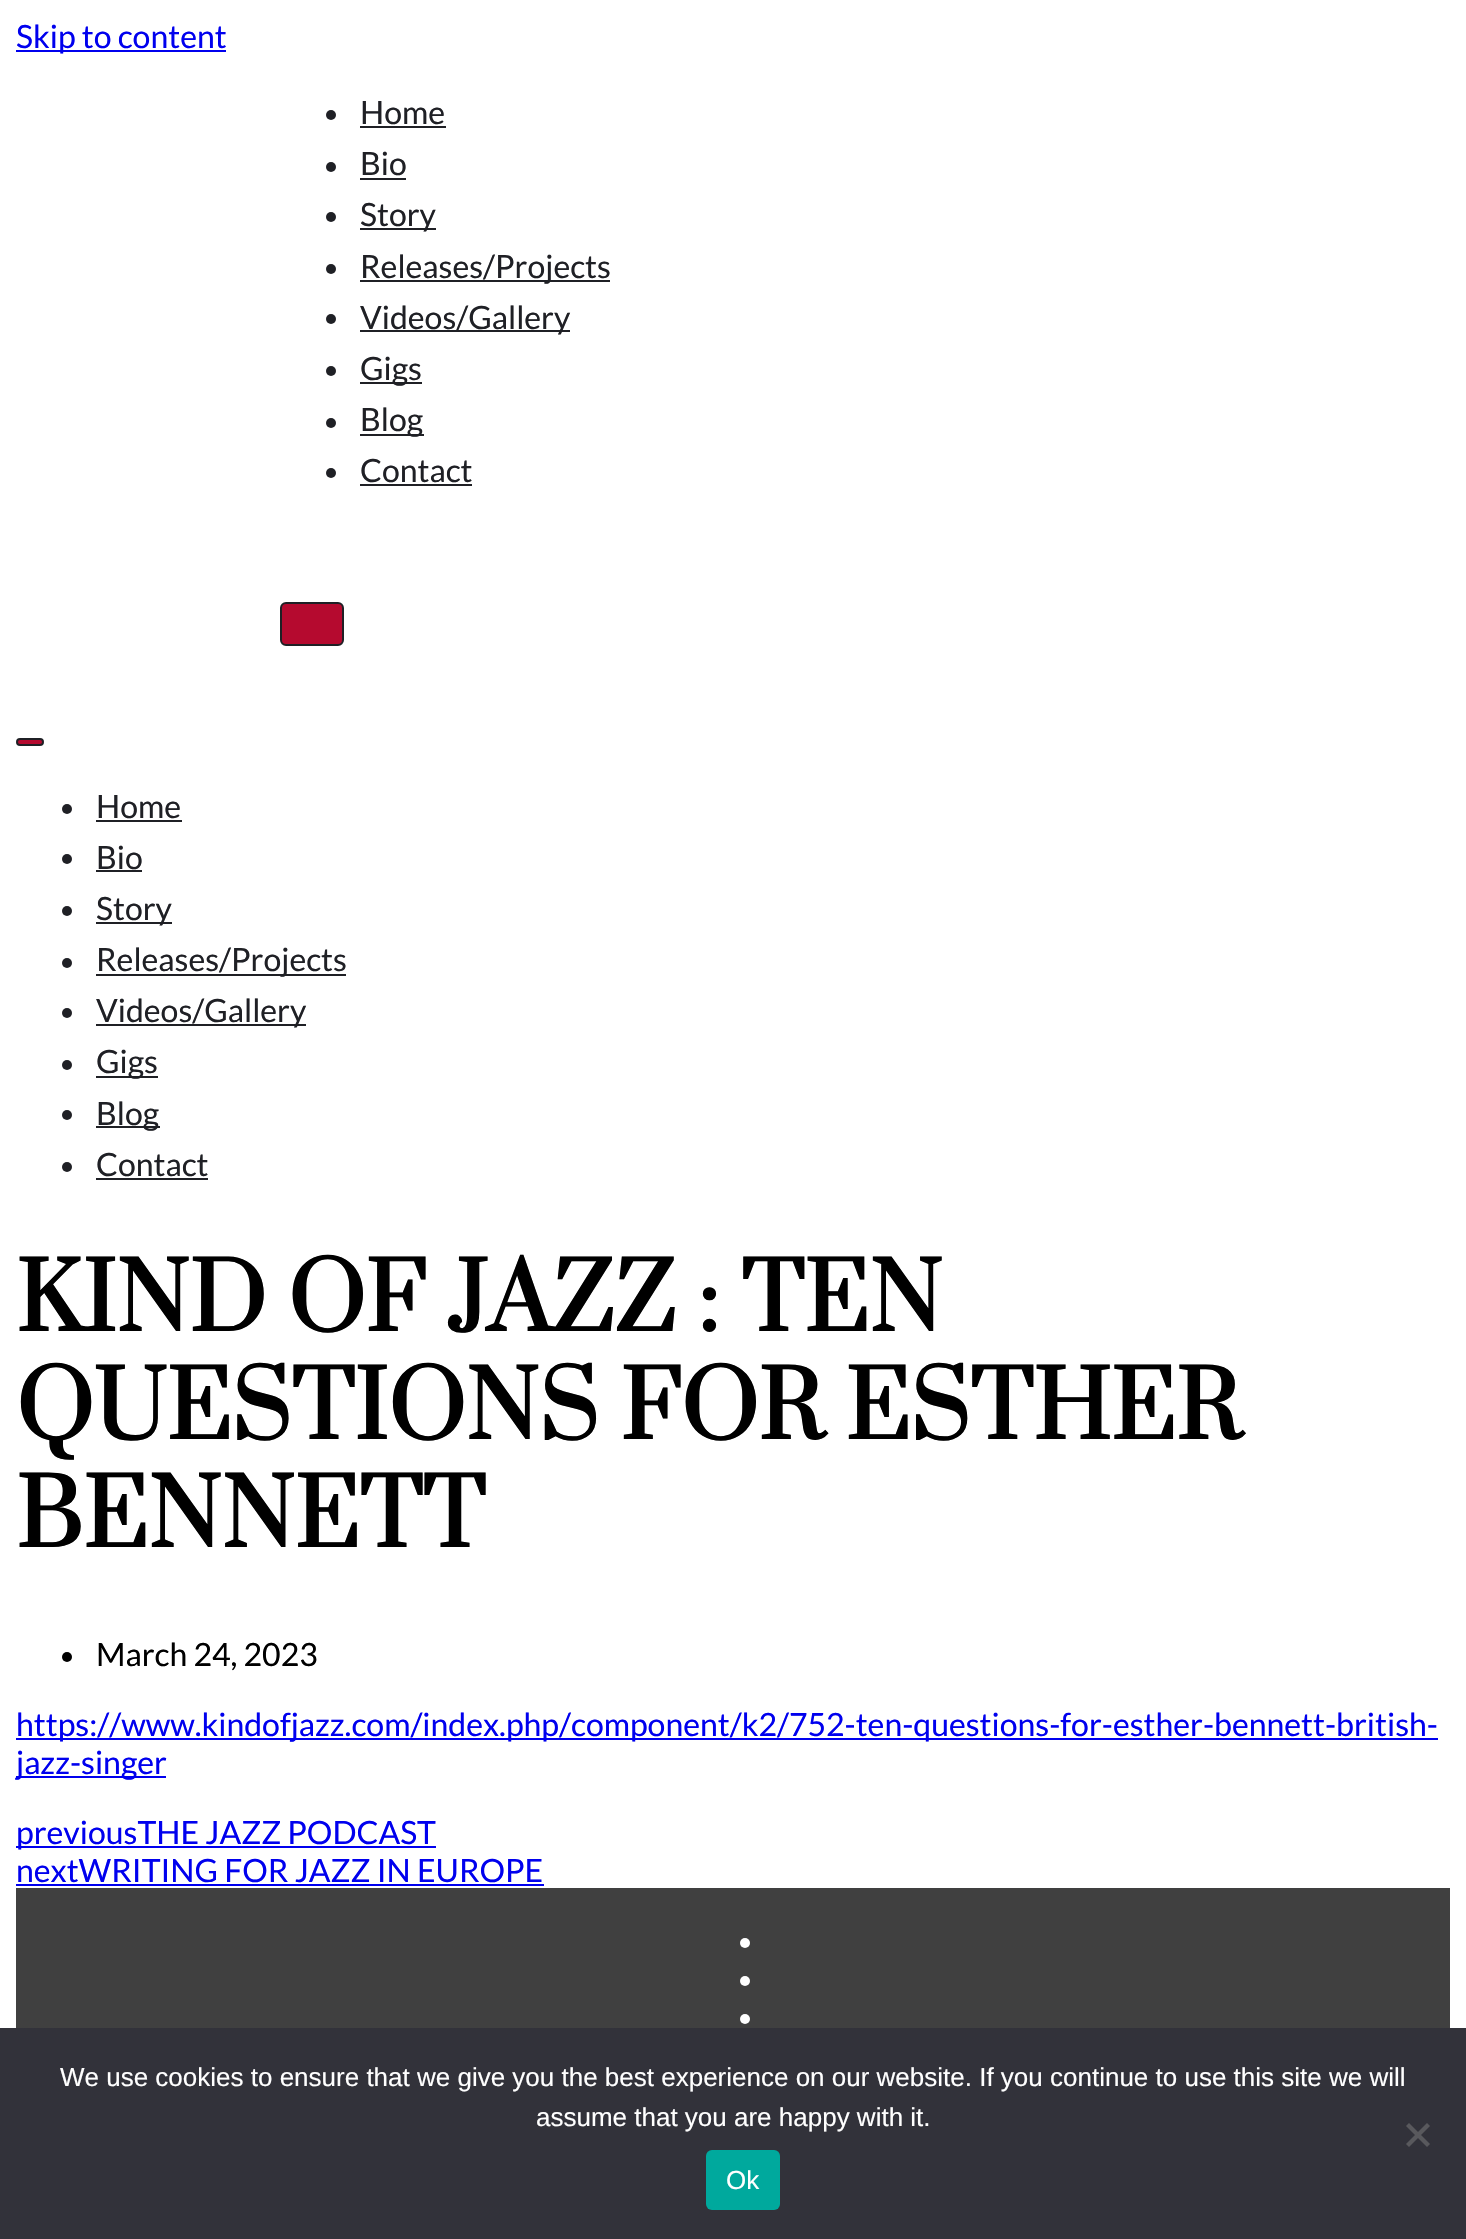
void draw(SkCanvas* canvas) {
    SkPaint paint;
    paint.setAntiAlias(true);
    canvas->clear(0xFFFFFFFF);
    paint.setColor(0xFF0000EE);
    canvas->drawRect(SkRect::MakeXYWH(16, 50, 210, 2), paint);
    SkFont font1(fontMgr->matchFamilyStyle("Lato", SkFontStyle::Normal()), 32);
    font1.setSubpixel(true);
    canvas->drawString("Skip to content", 16, 48, font1, paint);
    paint.setColor(0xFF1F2025);
    canvas->drawCircle(331, 115, 5, paint);
    canvas->drawString("Home", 360, 124, font1, paint);
    canvas->drawRect(SkRect::MakeXYWH(360, 126, 86, 2), paint);
    canvas->drawCircle(331, 167, 5, paint);
    canvas->drawString("Bio", 360, 175, font1, paint);
    canvas->drawRect(SkRect::MakeXYWH(360, 178, 46, 2), paint);
    canvas->drawCircle(331, 217, 5, paint);
    canvas->drawRect(SkRect::MakeXYWH(360, 228, 76, 2), paint);
    canvas->drawString("Story", 360, 226, font1, paint);
    canvas->drawCircle(331, 269, 5, paint);
    canvas->drawRect(SkRect::MakeXYWH(360, 280, 250, 2), paint);
    canvas->drawString("Releases/Projects", 360, 278, font1, paint);
    canvas->drawCircle(331, 319, 5, paint);
    canvas->drawRect(SkRect::MakeXYWH(360, 330, 210, 2), paint);
    canvas->drawString("Videos/Gallery", 360, 329, font1, paint);
    canvas->drawCircle(331, 371, 5, paint);
    canvas->drawRect(SkRect::MakeXYWH(360, 382, 62, 2), paint);
    canvas->drawString("Gigs", 360, 380, font1, paint);
    canvas->drawCircle(331, 423, 5, paint);
    canvas->drawRect(SkRect::MakeXYWH(360, 434, 64, 2), paint);
    canvas->drawString("Blog", 360, 431, font1, paint);
    canvas->drawCircle(331, 473, 5, paint);
    canvas->drawString("Contact", 360, 482, font1, paint);
    canvas->drawRect(SkRect::MakeXYWH(360, 484, 112, 2), paint);
    paint.setColor(0xFFB50A2F);
    canvas->drawRoundRect(SkRect::MakeXYWH(281, 603, 62, 42), 5, 5, paint);
    paint.setStyle(SkPaint::kStroke_Style);
    paint.setStrokeWidth(2);
    paint.setColor(0xFF1F2025);
    canvas->drawRoundRect(SkRect::MakeXYWH(281, 603, 62, 42), 5, 5, paint);
    paint.setStyle(SkPaint::kFill_Style);
    paint.setColor(0xFFB50A2F);
    canvas->drawRoundRect(SkRect::MakeXYWH(17, 739, 26, 6), 3, 3, paint);
    paint.setStyle(SkPaint::kStroke_Style);
    paint.setColor(0xFF1F2025);
    canvas->drawRoundRect(SkRect::MakeXYWH(17, 739, 26, 6), 3, 3, paint);
    paint.setStyle(SkPaint::kFill_Style);
    canvas->drawCircle(67, 809, 5, paint);
    canvas->drawString("Home", 96, 818, font1, paint);
    canvas->drawRect(SkRect::MakeXYWH(96, 820, 86, 2), paint);
    canvas->drawCircle(67, 859, 5, paint);
    canvas->drawString("Bio", 96, 869, font1, paint);
    canvas->drawRect(SkRect::MakeXYWH(96, 870, 46, 2), paint);
    canvas->drawCircle(67, 911, 5, paint);
    canvas->drawRect(SkRect::MakeXYWH(96, 922, 76, 2), paint);
    canvas->drawString("Story", 96, 920, font1, paint);
    canvas->drawCircle(67, 963, 5, paint);
    canvas->drawRect(SkRect::MakeXYWH(96, 974, 250, 2), paint);
    canvas->drawString("Releases/Projects", 96, 971, font1, paint);
    canvas->drawCircle(67, 1013, 5, paint);
    canvas->drawRect(SkRect::MakeXYWH(96, 1024, 210, 2), paint);
    canvas->drawString("Videos/Gallery", 96, 1022, font1, paint);
    canvas->drawCircle(67, 1065, 5, paint);
    canvas->drawRect(SkRect::MakeXYWH(96, 1076, 62, 2), paint);
    canvas->drawString("Gigs", 96, 1073, font1, paint);
    canvas->drawCircle(67, 1115, 5, paint);
    canvas->drawRect(SkRect::MakeXYWH(96, 1126, 64, 2), paint);
    canvas->drawString("Blog", 96, 1125, font1, paint);
    canvas->drawCircle(67, 1167, 5, paint);
    canvas->drawString("Contact", 96, 1176, font1, paint);
    canvas->drawRect(SkRect::MakeXYWH(96, 1178, 112, 2), paint);
    SkFont font2(fontMgr->matchFamilyStyle("Prata", SkFontStyle::Bold()), 90);
    font2.setSubpixel(true);
    paint.setColor(0xFF000000);
    canvas->drawString("KIND OF JAZZ : TEN", 16, 1331, font2, paint);
    canvas->drawString("QUESTIONS FOR ESTHER", 16, 1439, font2, paint);
    canvas->drawString("BENNETT", 16, 1547, font2, paint);
    canvas->drawCircle(67, 1657, 5, paint);
    canvas->drawString("March 24, 2023", 96, 1666, font1, paint);
    paint.setColor(0xFF0000EE);
    canvas->drawRect(SkRect::MakeXYWH(16, 1738, 1422, 2), paint);
    canvas->drawString("https://www.kindofjazz.com/index.php/component/k2/752-ten-questions-for-esther-bennett-british-", 16, 1736, font1, paint);
    canvas->drawRect(SkRect::MakeXYWH(16, 1776, 150, 2), paint);
    canvas->drawString("jazz-singer", 16, 1774, font1, paint);
    canvas->drawRect(SkRect::MakeXYWH(16, 1846, 420, 2), paint);
    canvas->drawString("previousTHE JAZZ PODCAST", 16, 1844, font1, paint);
    canvas->drawString("nextWRITING FOR JAZZ IN EUROPE", 16, 1882, font1, paint);
    canvas->drawRect(SkRect::MakeXYWH(16, 1884, 528, 2), paint);
    paint.setColor(0xFF404040);
    canvas->drawRect(SkRect::MakeXYWH(16, 1888, 1434, 140), paint);
    paint.setColor(0xFFFFFFFF);
    canvas->drawCircle(745, 1943, 5, paint);
    canvas->drawCircle(745, 1981, 5, paint);
    canvas->drawCircle(745, 2019, 5, paint);
    paint.setColor(0xFF32323A);
    canvas->drawRect(SkRect::MakeXYWH(0, 2028, 1466, 211), paint);
    SkFont font3(fontMgr->matchFamilyStyle("Liberation Sans", SkFontStyle::Normal()), 26);
    font3.setSubpixel(true);
    paint.setColor(0xFFFFFFFF);
    canvas->drawString("We use cookies to ensure that we give you the best experience on our website. If you continue to use this site we will", 60, 2086, font3, paint);
    canvas->drawString("assume that you are happy with it.", 536, 2126, font3, paint);
    paint.setColor(0xFF59595D);
    canvas->drawPath(SkPathBuilder().moveTo(1427, 2123).lineTo(1430, 2126).lineTo(1409, 2147).lineTo(1406, 2144).close().detach(), paint);
    canvas->drawPath(SkPathBuilder().moveTo(1406, 2126).lineTo(1409, 2123).lineTo(1430, 2144).lineTo(1427, 2147).close().detach(), paint);
    paint.setColor(0xFF00A99D);
    canvas->drawRoundRect(SkRect::MakeXYWH(706, 2150, 74, 60), 6, 6, paint);
    paint.setColor(0xFFFFFFFF);
    canvas->drawString("Ok", 726, 2189, font3, paint);
}
